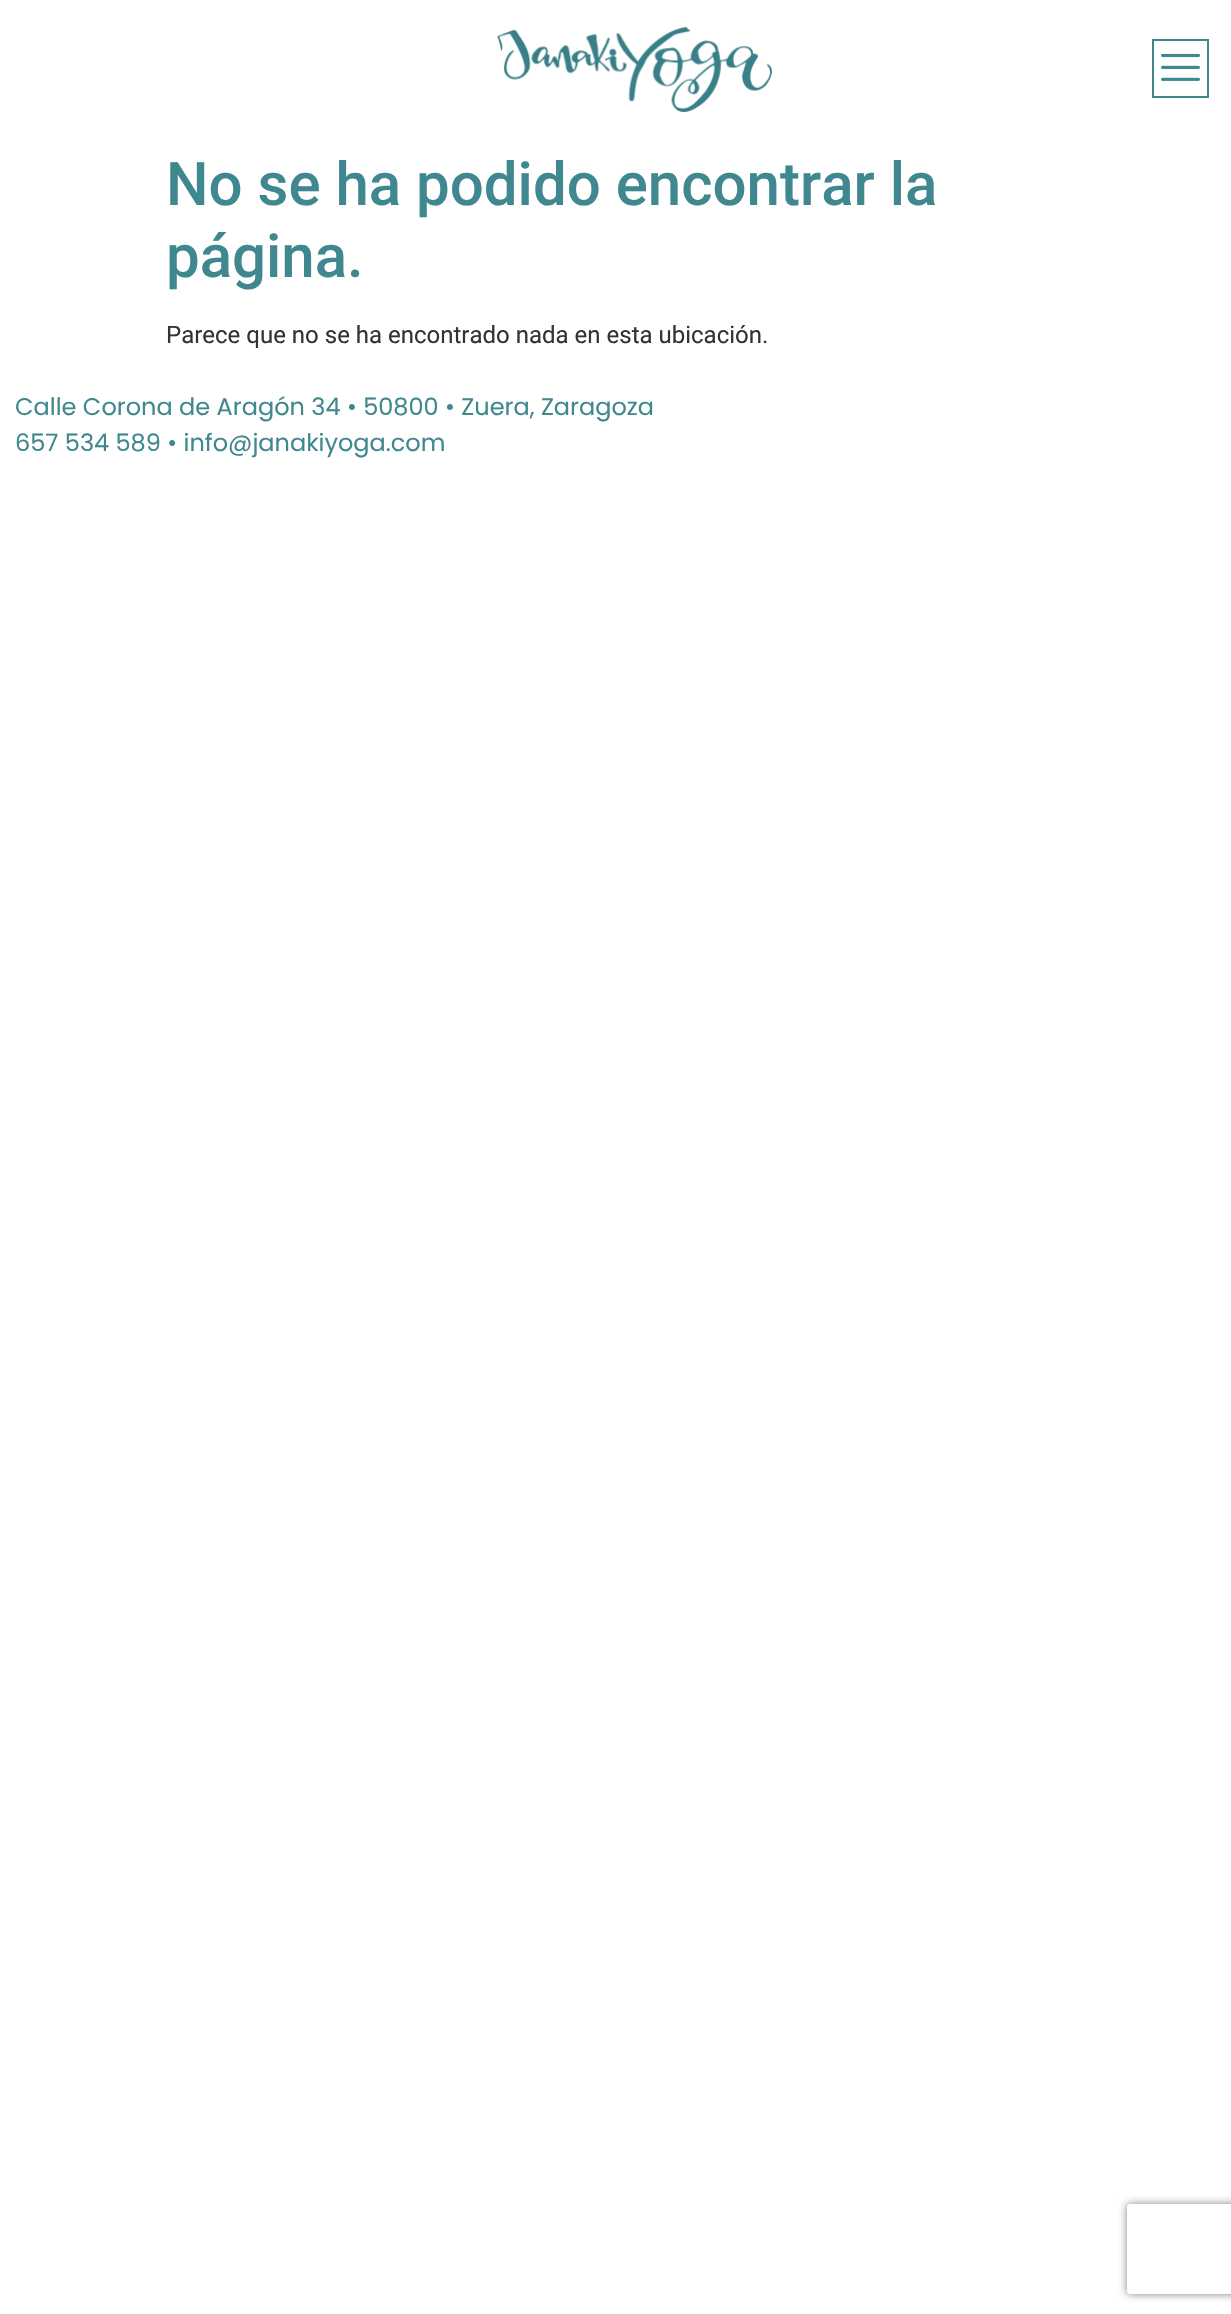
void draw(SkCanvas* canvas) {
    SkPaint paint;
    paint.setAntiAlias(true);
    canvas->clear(0xFFFFFFFF);
    canvas->drawImageRect(SkImages::DeferredFromEncodedData(SkData::MakeFromFileName("img1.png")), SkRect::MakeXYWH(497, 27, 275, 85), SkSamplingOptions());
    paint.setStyle(SkPaint::kStroke_Style);
    paint.setStrokeWidth(2);
    paint.setColor(0xFF3F888F);
    canvas->drawRect(SkRect::MakeXYWH(1153, 40, 55, 57), paint);
    canvas->drawImageRect(SkImages::DeferredFromEncodedData(SkData::MakeFromFileName("img2.png")), SkRect::MakeXYWH(1161, 53, 39, 28), SkSamplingOptions());
    SkFont font1(fontMgr->matchFamilyStyle("Roboto", SkFontStyle(500, SkFontStyle::kNormal_Width, SkFontStyle::kUpright_Slant)), 60);
    font1.setSubpixel(true);
    paint.setStyle(SkPaint::kFill_Style);
    canvas->drawString("No se ha podido encontrar la", 166, 205, font1, paint);
    canvas->drawString("página.", 166, 277, font1, paint);
    SkFont font2(fontMgr->matchFamilyStyle("Roboto", SkFontStyle::Normal()), 24);
    font2.setSubpixel(true);
    paint.setColor(0xFF333333);
    canvas->drawString("Parece que no se ha encontrado nada en esta ubicación.", 166, 343, font2, paint);
    SkFont font3(fontMgr->matchFamilyStyle("Poppins", SkFontStyle::Normal()), 24);
    font3.setSubpixel(true);
    paint.setColor(0xFF3F888F);
    canvas->drawString("Calle Corona de Aragón 34 • 50800 • Zuera, Zaragoza", 15, 415, font3, paint);
    canvas->drawString("657 534 589 • info@janakiyoga.com", 15, 451, font3, paint);
    canvas->save();
    canvas->clipPath(SkPathBuilder(SkPathFillType::kEvenOdd).moveTo(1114, 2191).lineTo(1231, 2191).lineTo(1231, 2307).lineTo(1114, 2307).close().moveTo(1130, 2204).lineTo(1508, 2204).cubicTo(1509.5f, 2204, 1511, 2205.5f, 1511, 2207).lineTo(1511, 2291).cubicTo(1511, 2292.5f, 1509.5f, 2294, 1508, 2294).lineTo(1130, 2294).cubicTo(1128.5f, 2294, 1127, 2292.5f, 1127, 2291).lineTo(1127, 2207).cubicTo(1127, 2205.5f, 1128.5f, 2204, 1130, 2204).close().detach(), true);
    paint.setColor(0xFF808080);
    paint.setMaskFilter(SkMaskFilter::MakeBlur(kNormal_SkBlurStyle, 4));
    canvas->drawRoundRect(SkRect::MakeXYWH(1127, 2204, 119, 90), 3, 3, paint);
    paint.setMaskFilter(nullptr);
    canvas->restore();
}
